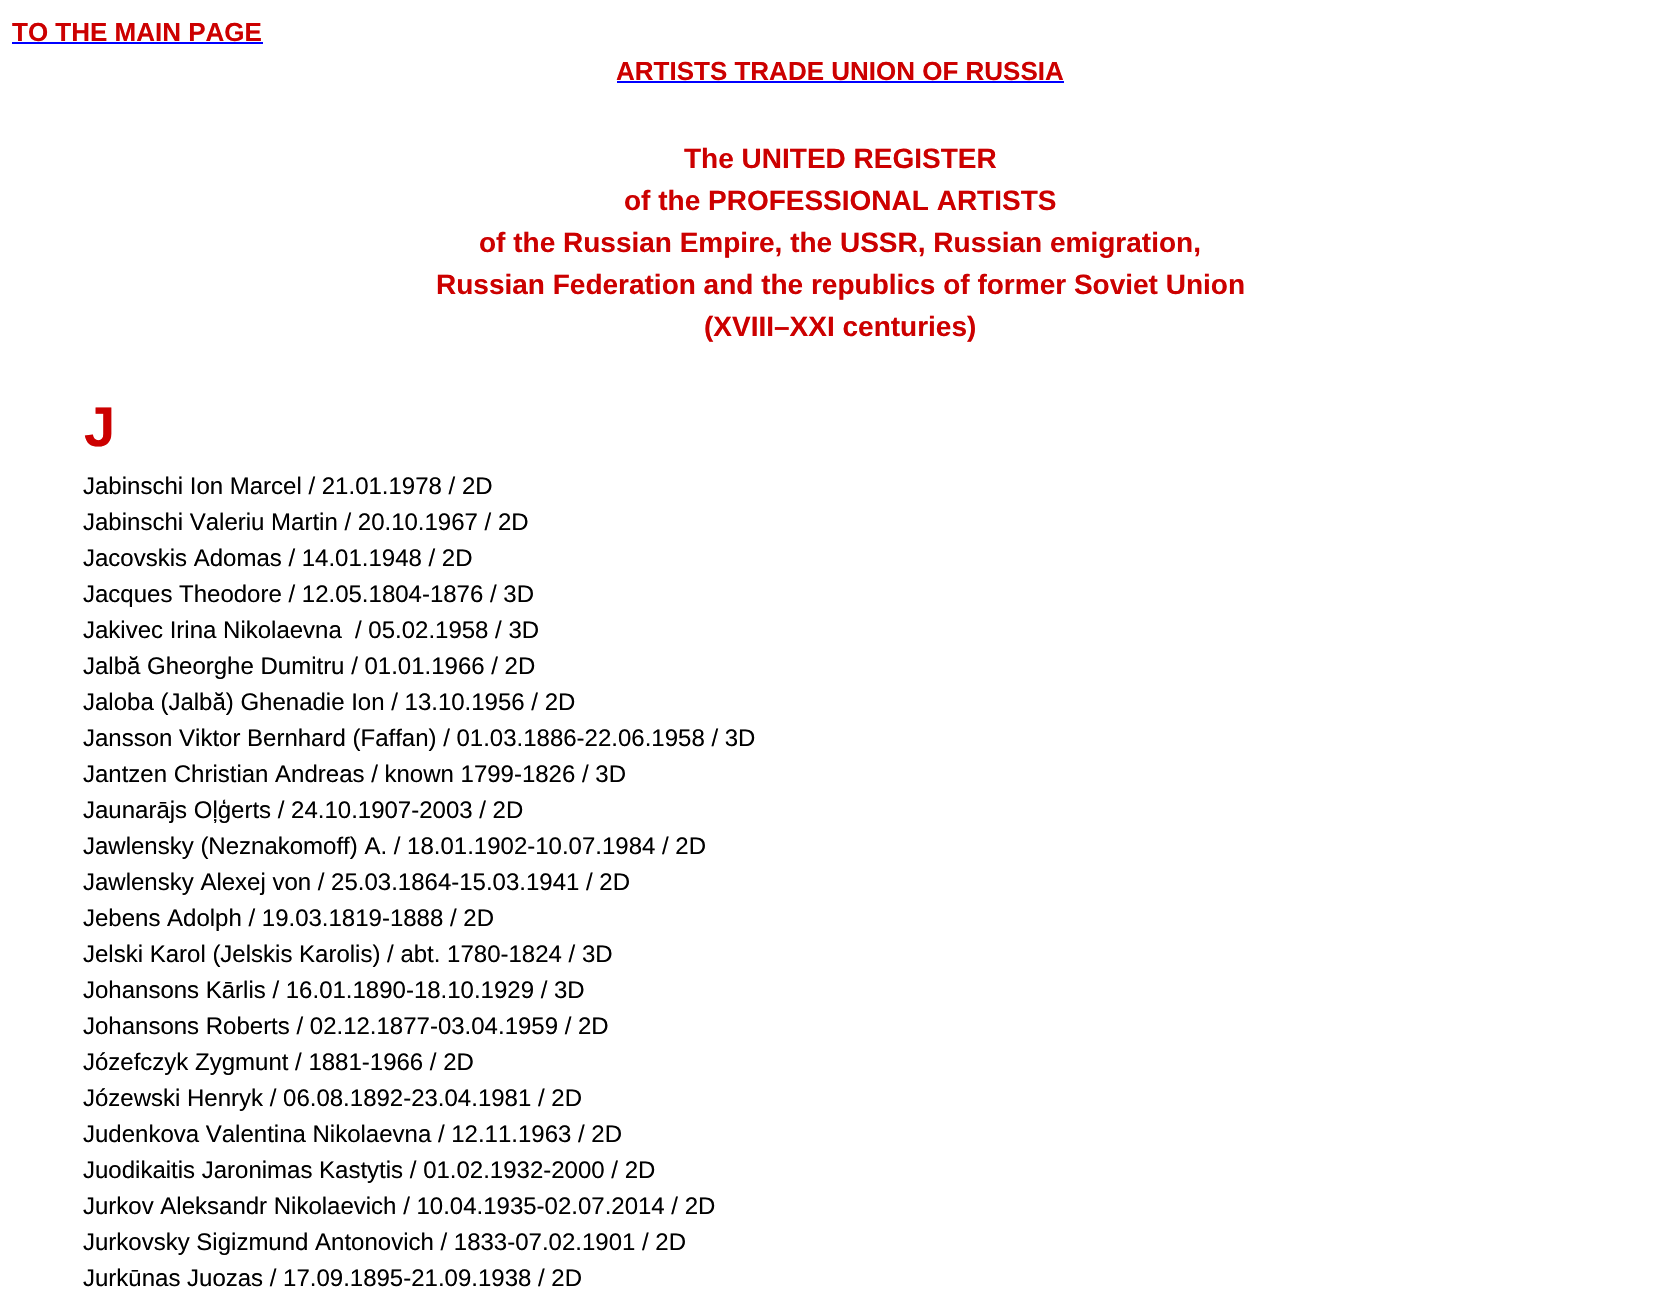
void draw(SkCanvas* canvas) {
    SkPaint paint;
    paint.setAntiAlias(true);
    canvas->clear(0xFFFFFFFF);
    SkFont font1(fontMgr->matchFamilyStyle("Liberation Sans", SkFontStyle::Bold()), 26);
    font1.setSubpixel(true);
    paint.setColor(0xFFCC0000);
    canvas->drawString("TO THE MAIN PAGE", 12, 41, font1, paint);
    paint.setColor(0xFF0000FF);
    canvas->drawRect(SkRect::MakeXYWH(12, 42, 251, 2), paint);
    paint.setColor(0xFFCC0000);
    canvas->drawString("ARTISTS TRADE UNION OF RUSSIA", 616, 80, font1, paint);
    paint.setColor(0xFF0000FF);
    canvas->drawRect(SkRect::MakeXYWH(617, 81, 447, 2), paint);
    SkFont font2(fontMgr->matchFamilyStyle("Liberation Sans", SkFontStyle::Bold()), 28);
    font2.setSubpixel(true);
    paint.setColor(0xFFCC0000);
    canvas->drawString("The UNITED REGISTER", 684, 168, font2, paint);
    canvas->drawString("of the PROFESSIONAL ARTISTS", 624, 210, font2, paint);
    canvas->drawString("of the Russian Empire, the USSR, Russian emigration,", 479, 252, font2, paint);
    canvas->drawString("Russian Federation and the republics of former Soviet Union", 436, 294, font2, paint);
    canvas->drawString("(XVIII–XXI centuries)", 704, 336, font2, paint);
    SkFont font3(fontMgr->matchFamilyStyle("Liberation Sans", SkFontStyle::Bold()), 56);
    font3.setSubpixel(true);
    canvas->drawString("J", 84, 446, font3, paint);
    SkFont font4(fontMgr->matchFamilyStyle("Liberation Sans", SkFontStyle::Normal()), 24);
    font4.setSubpixel(true);
    paint.setColor(0xFF000000);
    canvas->drawString("Jabinschi Ion Marcel / 21.01.1978 / 2D", 83, 494, font4, paint);
    canvas->drawString("Jabinschi Valeriu Martin / 20.10.1967 / 2D", 83, 530, font4, paint);
    canvas->drawString("Jacovskis Adomas / 14.01.1948 / 2D", 83, 566, font4, paint);
    canvas->drawString("Jacques Theodore / 12.05.1804-1876 / 3D", 83, 602, font4, paint);
    canvas->drawString("Jakivec Irina Nikolaevna", 83, 638, font4, paint);
    canvas->drawString("/ 05.02.1958 / 3D", 355, 638, font4, paint);
    canvas->drawString("Jalbă Gheorghe Dumitru / 01.01.1966 / 2D", 83, 674, font4, paint);
    canvas->drawString("Jaloba (Jalbă) Ghenadie Ion / 13.10.1956 / 2D", 83, 710, font4, paint);
    canvas->drawString("Jansson Viktor Bernhard (Faffan) / 01.03.1886-22.06.1958 / 3D", 83, 746, font4, paint);
    canvas->drawString("Jantzen Christian Andreas / known 1799-1826 / 3D", 83, 782, font4, paint);
    canvas->drawString("Jaunarājs Oļģerts / 24.10.1907-2003 / 2D", 83, 818, font4, paint);
    canvas->drawString("Jawlensky (Neznakomoff) A. / 18.01.1902-10.07.1984 / 2D", 83, 854, font4, paint);
    canvas->drawString("Jawlensky Alexej von / 25.03.1864-15.03.1941 / 2D", 83, 890, font4, paint);
    canvas->drawString("Jebens Adolph / 19.03.1819-1888 / 2D", 83, 926, font4, paint);
    canvas->drawString("Jelski Karol (Jelskis Karolis) / abt. 1780-1824 / 3D", 83, 962, font4, paint);
    canvas->drawString("Johansons Kārlis / 16.01.1890-18.10.1929 / 3D", 83, 998, font4, paint);
    canvas->drawString("Johansons Roberts / 02.12.1877-03.04.1959 / 2D", 83, 1034, font4, paint);
    canvas->drawString("Józefczyk Zygmunt / 1881-1966 / 2D", 83, 1070, font4, paint);
    canvas->drawString("Józewski Henryk / 06.08.1892-23.04.1981 / 2D", 83, 1106, font4, paint);
    canvas->drawString("Judenkova Valentina Nikolaevna / 12.11.1963 / 2D", 83, 1142, font4, paint);
    canvas->drawString("Juodikaitis Jaronimas Kastytis / 01.02.1932-2000 / 2D", 83, 1178, font4, paint);
    canvas->drawString("Jurkov Aleksandr Nikolaevich / 10.04.1935-02.07.2014 / 2D", 83, 1214, font4, paint);
    canvas->drawString("Jurkovsky Sigizmund Antonovich / 1833-07.02.1901 / 2D", 83, 1250, font4, paint);
    canvas->drawString("Jurkūnas Juozas / 17.09.1895-21.09.1938 / 2D", 83, 1286, font4, paint);
}
